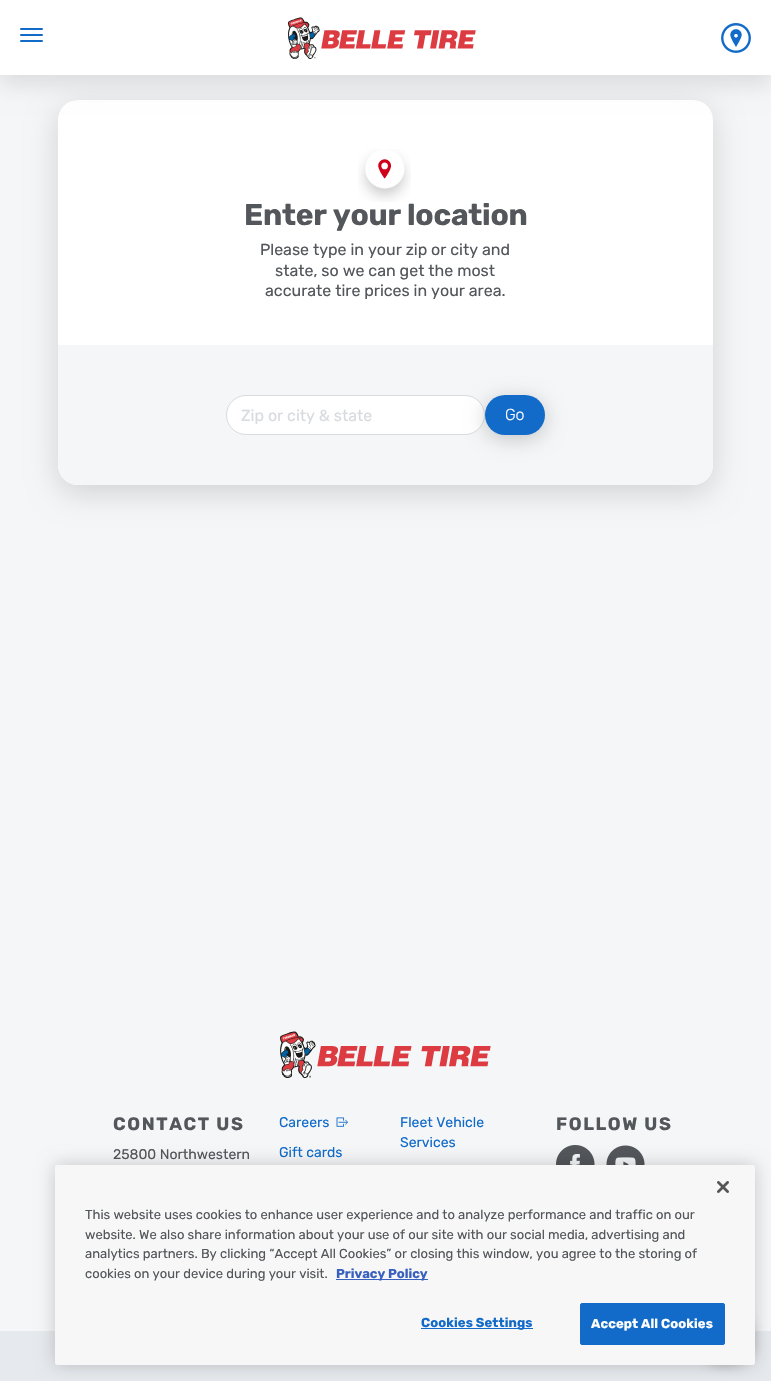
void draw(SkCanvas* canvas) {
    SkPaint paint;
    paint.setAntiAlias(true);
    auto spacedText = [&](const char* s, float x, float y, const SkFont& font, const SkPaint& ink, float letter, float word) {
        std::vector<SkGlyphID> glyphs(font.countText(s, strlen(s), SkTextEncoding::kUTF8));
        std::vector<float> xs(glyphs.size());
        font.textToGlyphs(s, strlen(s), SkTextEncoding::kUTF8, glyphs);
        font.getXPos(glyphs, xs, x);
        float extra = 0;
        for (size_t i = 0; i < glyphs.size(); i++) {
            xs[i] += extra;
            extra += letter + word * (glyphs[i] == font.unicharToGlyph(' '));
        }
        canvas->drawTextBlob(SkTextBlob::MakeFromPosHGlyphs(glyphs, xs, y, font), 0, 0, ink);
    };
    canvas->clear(0xFFF4F6F7);
    paint.setColor(0x26000000);
    paint.setMaskFilter(SkMaskFilter::MakeBlur(kNormal_SkBlurStyle, 15));
    canvas->drawRoundRect(SkRect::MakeXYWH(58, 108, 655, 385), 20, 20, paint);
    paint.setMaskFilter(nullptr);
    paint.setColor(0xFFFFFFFF);
    canvas->drawRoundRect(SkRect::MakeXYWH(58, 100, 655, 385), 20, 20, paint);
    paint.setColor(0x1A000000);
    paint.setMaskFilter(SkMaskFilter::MakeBlur(kNormal_SkBlurStyle, 10));
    canvas->drawRect(SkRect::MakeXYWH(0, 10, 771, 75), paint);
    paint.setMaskFilter(nullptr);
    paint.setColor(0xFFFFFFFF);
    canvas->drawRect(SkRect::MakeXYWH(0, 0, 771, 75), paint);
    paint.setColor(0xFF126BC9);
    canvas->drawRoundRect(SkRect::MakeXYWH(20, 28, 23, 2), 1, 1, paint);
    canvas->drawRoundRect(SkRect::MakeXYWH(20, 34, 23, 2), 1, 1, paint);
    canvas->drawRoundRect(SkRect::MakeXYWH(20, 40, 23, 2), 1, 1, paint);
    canvas->drawImageRect(SkImages::DeferredFromEncodedData(SkData::MakeFromFileName("img1.png")), SkRect::MakeXYWH(288, 17, 188, 42), SkSamplingOptions());
    canvas->drawImageRect(SkImages::DeferredFromEncodedData(SkData::MakeFromFileName("img2.png")), SkRect::MakeXYWH(721, 23, 30, 30), SkSamplingOptions());
    canvas->drawImageRect(SkImages::DeferredFromEncodedData(SkData::MakeFromFileName("img3.png")), SkRect::MakeXYWH(358, 149, 53, 53), SkSamplingOptions());
    SkFont font1(fontMgr->matchFamilyStyle("Rubik", SkFontStyle::Bold()), 30);
    font1.setSubpixel(true);
    paint.setColor(0xFF53565A);
    spacedText("Enter your location", 244, 225, font1, paint, -0.25f, 0);
    SkFont font2(fontMgr->matchFamilyStyle("Rubik", SkFontStyle::Normal()), 16);
    font2.setSubpixel(true);
    canvas->drawString("Please type in your zip or city and", 260, 255, font2, paint);
    canvas->drawString("state, so we can get the most", 275, 276, font2, paint);
    canvas->drawString("accurate tire prices in your area.", 265, 296, font2, paint);
    paint.setColor(0xFFF4F6F7);
    canvas->drawPath(SkPathBuilder().moveTo(58, 345).lineTo(713, 345).lineTo(713, 465).cubicTo(713, 476, 704, 485, 693, 485).lineTo(78, 485).cubicTo(67, 485, 58, 476, 58, 465).close().detach(), paint);
    paint.setColor(0xFFFFFFFF);
    canvas->drawRoundRect(SkRect::MakeXYWH(226.5f, 395.5f, 258, 39), 19.5f, 19.5f, paint);
    paint.setStyle(SkPaint::kStroke_Style);
    paint.setStrokeWidth(1);
    paint.setColor(0xFFD8DBDF);
    canvas->drawRoundRect(SkRect::MakeXYWH(226.5f, 395.5f, 258, 39), 19.5f, 19.5f, paint);
    paint.setStyle(SkPaint::kFill_Style);
    canvas->drawString("Zip or city & state", 241, 421, font2, paint);
    paint.setColor(0x33000000);
    paint.setMaskFilter(SkMaskFilter::MakeBlur(kNormal_SkBlurStyle, 10));
    canvas->drawRoundRect(SkRect::MakeXYWH(485, 399, 60, 40), 20, 20, paint);
    paint.setMaskFilter(nullptr);
    paint.setColor(0xFF126BC9);
    canvas->drawRoundRect(SkRect::MakeXYWH(485, 395, 60, 40), 20, 20, paint);
    SkFont font3(fontMgr->matchFamilyStyle("Rubik", SkFontStyle(300, SkFontStyle::kNormal_Width, SkFontStyle::kUpright_Slant)), 16);
    font3.setSubpixel(true);
    paint.setColor(0xFFFFFFFF);
    canvas->drawString("Go", 505, 420, font3, paint);
    canvas->drawImageRect(SkImages::DeferredFromEncodedData(SkData::MakeFromFileName("img4.png")), SkRect::MakeXYWH(280, 1031, 211, 47), SkSamplingOptions());
    SkFont font4(fontMgr->matchFamilyStyle("Rubik", SkFontStyle::Bold()), 18);
    font4.setSubpixel(true);
    paint.setColor(0xFF53565A);
    spacedText("CONTACT US", 113, 1130, font4, paint, 1.6f, 0);
    SkFont font5(fontMgr->matchFamilyStyle("Rubik", SkFontStyle::Normal()), 14);
    font5.setSubpixel(true);
    canvas->drawString("25800 Northwestern", 113, 1159, font5, paint);
    paint.setColor(0xFF126BC9);
    canvas->drawString("Careers", 279, 1127, font5, paint);
    canvas->drawImageRect(SkImages::DeferredFromEncodedData(SkData::MakeFromFileName("img5.png")), SkRect::MakeXYWH(336, 1117, 12, 10), SkSamplingOptions());
    canvas->drawString("Gift cards", 279, 1157, font5, paint);
    canvas->drawString("Fleet Vehicle", 400, 1127, font5, paint);
    canvas->drawString("Services", 400, 1147, font5, paint);
    paint.setColor(0xFF53565A);
    spacedText("FOLLOW US", 556, 1130, font4, paint, 1.6f, 0);
    canvas->drawImageRect(SkImages::DeferredFromEncodedData(SkData::MakeFromFileName("img6.png")), SkRect::MakeXYWH(556, 1145, 39, 20), SkSamplingOptions());
    canvas->drawImageRect(SkImages::DeferredFromEncodedData(SkData::MakeFromFileName("img7.png")), SkRect::MakeXYWH(606, 1145, 39, 20), SkSamplingOptions());
    paint.setColor(0xFFE6E9ED);
    canvas->drawRect(SkRect::MakeXYWH(0, 1331, 771, 50), paint);
    paint.setColor(0x33000000);
    paint.setMaskFilter(SkMaskFilter::MakeBlur(kNormal_SkBlurStyle, 9));
    canvas->drawRoundRect(SkRect::MakeXYWH(55, 1165, 700, 200), 2.5f, 2.5f, paint);
    paint.setMaskFilter(nullptr);
    paint.setColor(0x45585858);
    paint.setMaskFilter(SkMaskFilter::MakeBlur(kNormal_SkBlurStyle, 5.5f));
    canvas->drawRoundRect(SkRect::MakeXYWH(695, 1307, 60, 60), 30, 30, paint);
    paint.setMaskFilter(nullptr);
    paint.setColor(0xFFF7F7F7);
    canvas->drawRoundRect(SkRect::MakeXYWH(55, 1165, 700, 200), 2.5f, 2.5f, paint);
    canvas->drawImageRect(SkImages::DeferredFromEncodedData(SkData::MakeFromFileName("img8.png")), SkRect::MakeXYWH(717, 1181, 12, 12), SkSamplingOptions());
    SkFont font6(fontMgr->matchFamilyStyle("Rubik", SkFontStyle::Normal()), 13);
    font6.setSubpixel(true);
    paint.setColor(0xFF53565A);
    canvas->drawString("This website uses cookies to enhance user experience and to analyze performance and traffic on our", 85, 1219, font6, paint);
    canvas->drawString("website. We also share information about your use of our site with our social media, advertising and", 85, 1239, font6, paint);
    canvas->drawString("analytics partners. By clicking “Accept All Cookies” or closing this window, you agree to the storing of", 85, 1258, font6, paint);
    canvas->drawString("cookies on your device during your visit.", 85, 1278, font6, paint);
    paint.setColor(0xFF3860BE);
    canvas->drawRect(SkRect::MakeXYWH(336, 1279, 92, 1), paint);
    SkFont font7(fontMgr->matchFamilyStyle("Rubik", SkFontStyle::Bold()), 13);
    font7.setSubpixel(true);
    canvas->drawString("Privacy Policy", 336, 1278, font7, paint);
    paint.setColor(0xFF126BC9);
    canvas->drawRect(SkRect::MakeXYWH(421, 1328, 112, 1), paint);
    spacedText("Cookies Settings", 421, 1327, font7, paint, 0.1f, 0);
    canvas->drawRoundRect(SkRect::MakeXYWH(580.5f, 1303.5f, 144, 41), 1.5f, 1.5f, paint);
    paint.setStyle(SkPaint::kStroke_Style);
    canvas->drawRoundRect(SkRect::MakeXYWH(580.5f, 1303.5f, 144, 41), 1.5f, 1.5f, paint);
    paint.setStyle(SkPaint::kFill_Style);
    paint.setColor(0xFFFFFFFF);
    spacedText("Accept All Cookies", 591, 1328, font7, paint, 0.1f, 0);
}
